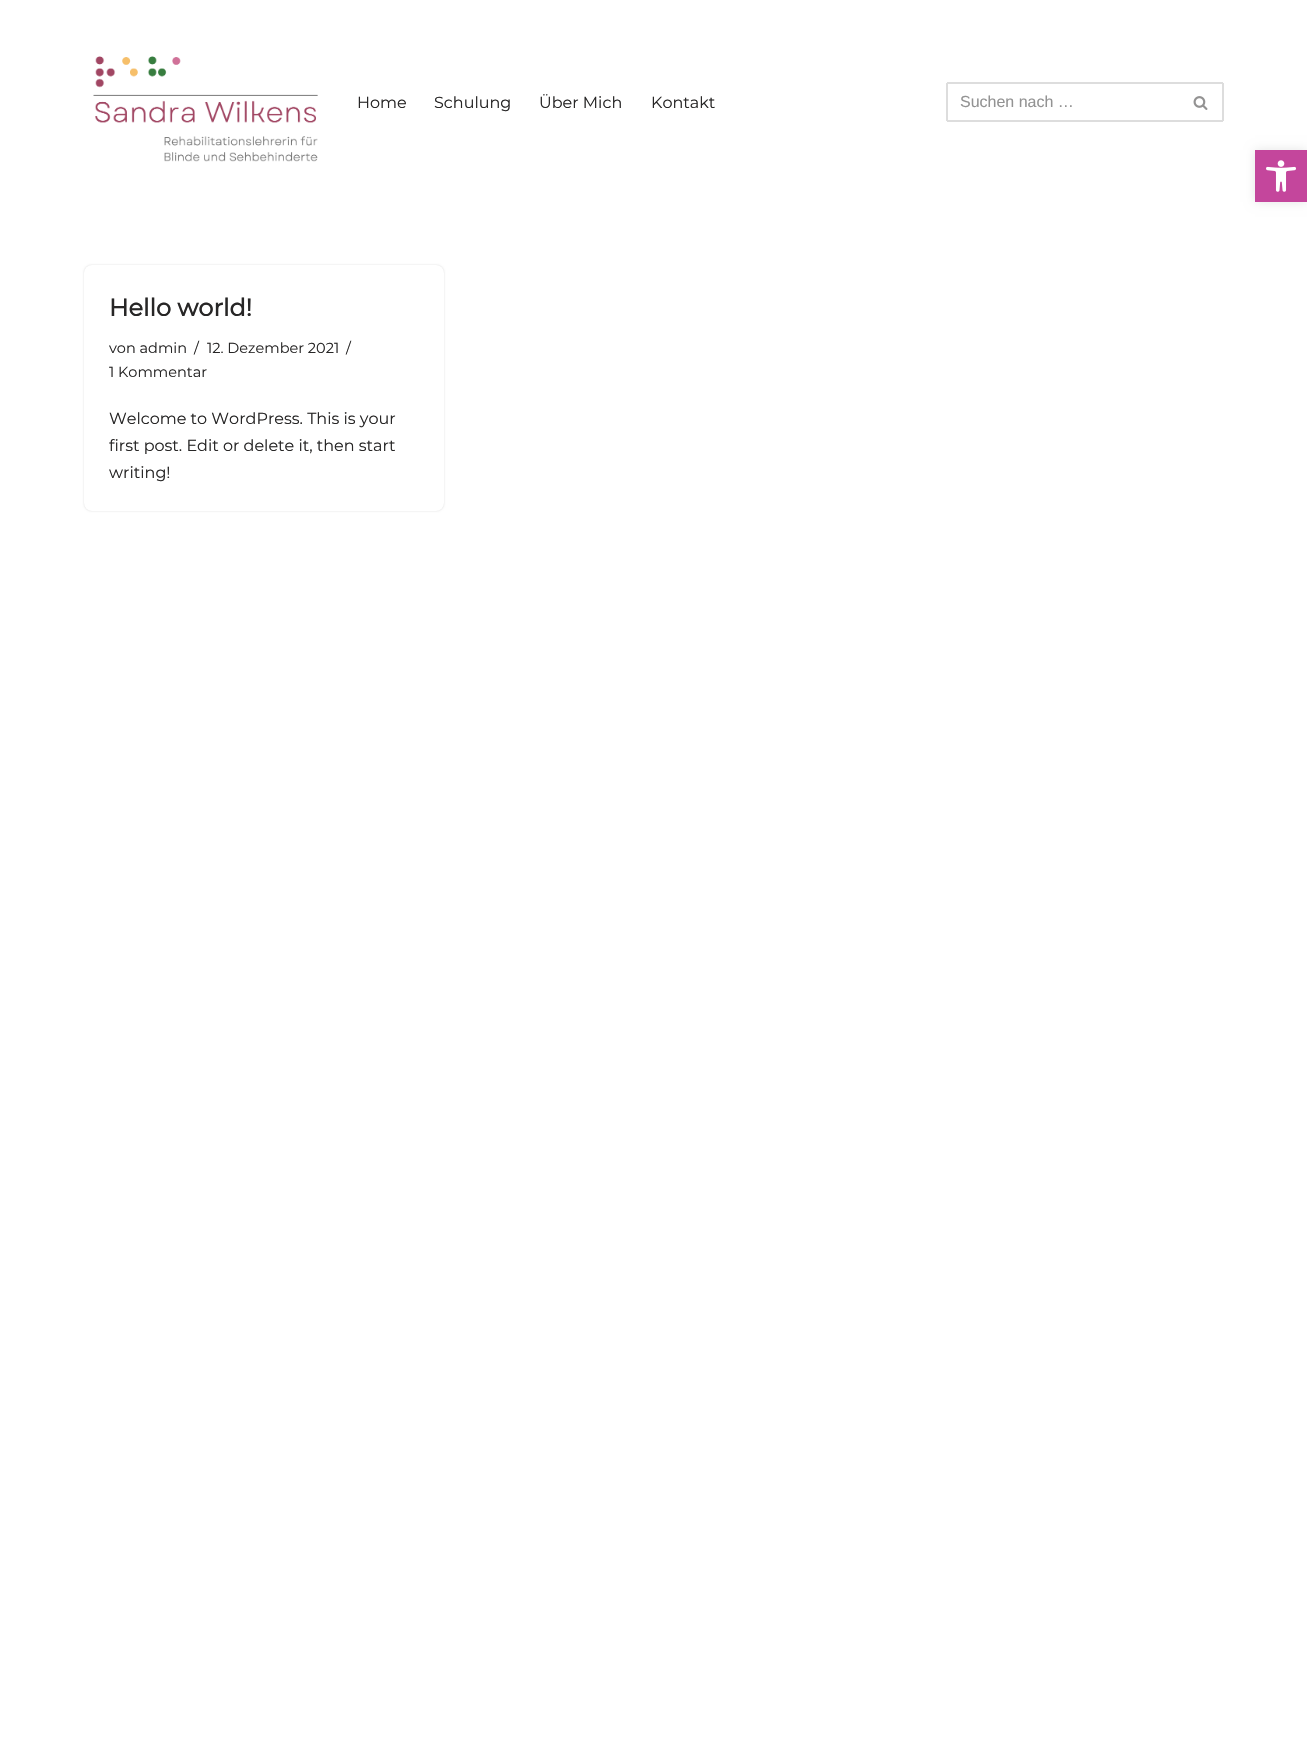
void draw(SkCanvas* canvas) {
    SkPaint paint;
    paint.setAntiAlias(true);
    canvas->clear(0xFFFFFFFF);
    canvas->drawImageRect(SkImages::DeferredFromEncodedData(SkData::MakeFromFileName("img1.png")), SkRect::MakeXYWH(93, 56, 225, 106), SkSamplingOptions());
    SkFont font1(fontMgr->matchFamilyStyle("Montserrat", SkFontStyle(100, SkFontStyle::kNormal_Width, SkFontStyle::kUpright_Slant)), 16);
    font1.setSubpixel(true);
    paint.setColor(0xFF272626);
    canvas->drawString("Home", 357, 108, font1, paint);
    canvas->drawString("Schulung", 434, 108, font1, paint);
    canvas->drawString("Über Mich", 539, 108, font1, paint);
    canvas->drawString("Kontakt", 651, 108, font1, paint);
    paint.setColor(0xFFDDDDDD);
    canvas->drawRect(SkRect::MakeXYWH(947, 82, 276, 2), paint);
    canvas->drawRect(SkRect::MakeXYWH(947, 120, 232, 2), paint);
    canvas->drawRect(SkRect::MakeXYWH(946, 83, 2, 38), paint);
    SkFont font2(fontMgr->matchFamilyStyle("Liberation Sans", SkFontStyle::Normal()), 16);
    font2.setSubpixel(true);
    paint.setColor(0xFF939393);
    canvas->drawString("Suchen nach …", 960, 107, font2, paint);
    paint.setColor(0xFFDDDDDD);
    canvas->drawRect(SkRect::MakeXYWH(1222, 83, 2, 38), paint);
    canvas->drawRect(SkRect::MakeXYWH(1179, 120, 44, 2), paint);
    canvas->drawImageRect(SkImages::DeferredFromEncodedData(SkData::MakeFromFileName("img2.png")), SkRect::MakeXYWH(1193, 96, 15, 14), SkSamplingOptions());
    paint.setColor(0x26000000);
    paint.setMaskFilter(SkMaskFilter::MakeBlur(kNormal_SkBlurStyle, 1));
    canvas->drawRoundRect(SkRect::MakeXYWH(84, 265, 360, 246), 8, 8, paint);
    paint.setMaskFilter(nullptr);
    paint.setColor(0xFFFFFFFF);
    canvas->drawRoundRect(SkRect::MakeXYWH(84, 265, 360, 246), 8, 8, paint);
    SkFont font3(fontMgr->matchFamilyStyle("Montserrat", SkFontStyle::Bold()), 24);
    font3.setSubpixel(true);
    paint.setColor(0xFF272626);
    canvas->drawString("Hello world!", 109, 316, font3, paint);
    SkFont font4(fontMgr->matchFamilyStyle("Montserrat", SkFontStyle(100, SkFontStyle::kNormal_Width, SkFontStyle::kUpright_Slant)), 14.5f);
    font4.setSubpixel(true);
    canvas->drawString("von admin", 109, 353, font4, paint);
    canvas->drawString("/", 194, 353, font4, paint);
    canvas->drawString("12. Dezember 2021", 207, 353, font4, paint);
    canvas->drawString("/", 346, 353, font4, paint);
    canvas->drawString("1 Kommentar", 109, 377, font4, paint);
    canvas->drawString("Welcome to WordPress. This is your", 109, 424, font1, paint);
    canvas->drawString("first post. Edit or delete it, then start", 109, 451, font1, paint);
    canvas->drawString("writing!", 109, 478, font1, paint);
    paint.setColor(0x1A000000);
    paint.setMaskFilter(SkMaskFilter::MakeBlur(kNormal_SkBlurStyle, 5));
    canvas->drawRect(SkRect::MakeXYWH(1255, 150, 52, 52), paint);
    paint.setMaskFilter(nullptr);
    paint.setColor(0xFFC4469C);
    canvas->drawRect(SkRect::MakeXYWH(1255, 150, 52, 52), paint);
    canvas->drawImageRect(SkImages::DeferredFromEncodedData(SkData::MakeFromFileName("img3.png")), SkRect::MakeXYWH(1266, 160, 30, 32), SkSamplingOptions());
}
